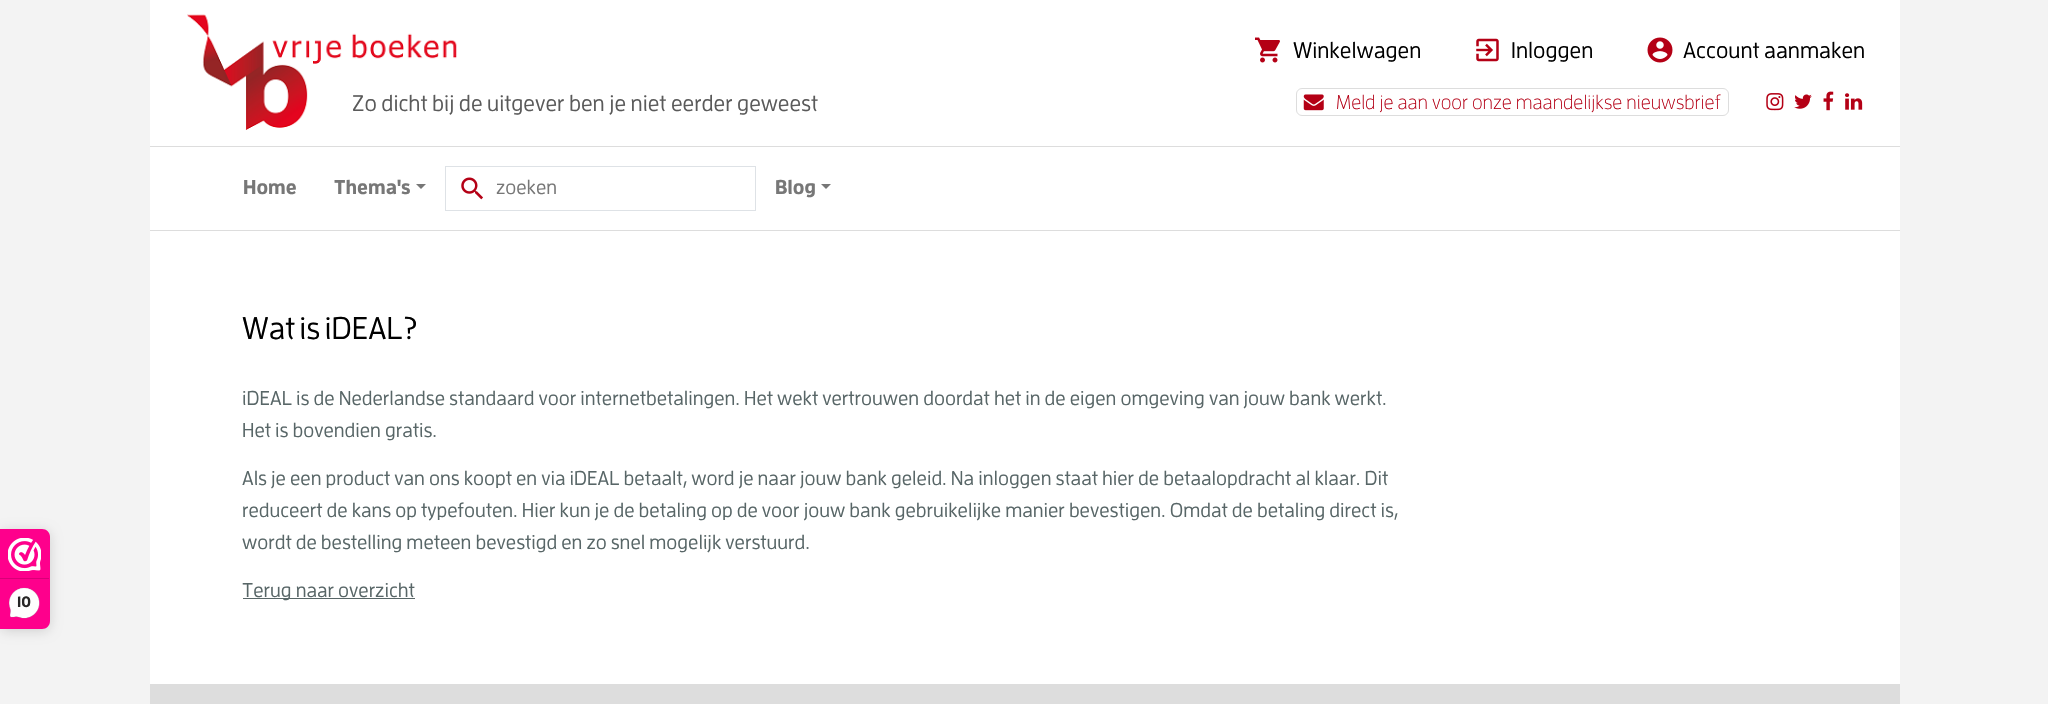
void draw(SkCanvas* canvas) {
    SkPaint paint;
    paint.setAntiAlias(true);
    auto spacedText = [&](const char* s, float x, float y, const SkFont& font, const SkPaint& ink, float letter, float word) {
        std::vector<SkGlyphID> glyphs(font.countText(s, strlen(s), SkTextEncoding::kUTF8));
        std::vector<float> xs(glyphs.size());
        font.textToGlyphs(s, strlen(s), SkTextEncoding::kUTF8, glyphs);
        font.getXPos(glyphs, xs, x);
        float extra = 0;
        for (size_t i = 0; i < glyphs.size(); i++) {
            xs[i] += extra;
            extra += letter + word * (glyphs[i] == font.unicharToGlyph(' '));
        }
        canvas->drawTextBlob(SkTextBlob::MakeFromPosHGlyphs(glyphs, xs, y, font), 0, 0, ink);
    };
    canvas->clear(0xFFF3F3F3);
    paint.setColor(0x26000000);
    paint.setMaskFilter(SkMaskFilter::MakeBlur(kNormal_SkBlurStyle, 6));
    canvas->drawRoundRect(SkRect::MakeXYWH(0, 531, 50, 100), 8, 8, paint);
    paint.setMaskFilter(nullptr);
    paint.setColor(0xFFFE008C);
    canvas->drawPath(SkPathBuilder().moveTo(0, 529).lineTo(42, 529).cubicTo(46.5f, 529, 50, 532.5f, 50, 537).lineTo(50, 621).cubicTo(50, 625.5f, 46.5f, 629, 42, 629).lineTo(0, 629).close().detach(), paint);
    canvas->drawImageRect(SkImages::DeferredFromEncodedData(SkData::MakeFromFileName("img1.png")), SkRect::MakeXYWH(8, 538, 33, 33), SkSamplingOptions());
    paint.setColor(0xFFD80077);
    canvas->drawRect(SkRect::MakeXYWH(0, 578, 49, 1), paint);
    canvas->drawImageRect(SkImages::DeferredFromEncodedData(SkData::MakeFromFileName("img2.png")), SkRect::MakeXYWH(9, 587, 31, 32), SkSamplingOptions());
    SkFont font1(fontMgr->matchFamilyStyle("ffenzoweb", SkFontStyle::Bold()), 15);
    font1.setSubpixel(true);
    paint.setColor(0xFF272626);
    canvas->drawString("10", 17, 607, font1, paint);
    paint.setColor(0xFFFFFFFF);
    canvas->drawRect(SkRect::MakeXYWH(150, 0, 1750, 684), paint);
    canvas->drawImageRect(SkImages::DeferredFromEncodedData(SkData::MakeFromFileName("img3.png")), SkRect::MakeXYWH(1255, 37, 25, 26), SkSamplingOptions());
    SkFont font2(fontMgr->matchFamilyStyle("ffenzoweb", SkFontStyle(500, SkFontStyle::kNormal_Width, SkFontStyle::kUpright_Slant)), 22.5f);
    font2.setSubpixel(true);
    paint.setColor(0xFF000000);
    canvas->drawString("Winkelwagen", 1293, 58, font2, paint);
    canvas->drawImageRect(SkImages::DeferredFromEncodedData(SkData::MakeFromFileName("img4.png")), SkRect::MakeXYWH(1476, 38, 23, 24), SkSamplingOptions());
    canvas->drawString("Inloggen", 1511, 58, font2, paint);
    canvas->drawImageRect(SkImages::DeferredFromEncodedData(SkData::MakeFromFileName("img5.png")), SkRect::MakeXYWH(1647, 37, 26, 26), SkSamplingOptions());
    canvas->drawString("Account aanmaken", 1683, 58, font2, paint);
    canvas->drawImageRect(SkImages::DeferredFromEncodedData(SkData::MakeFromFileName("img6.png")), SkRect::MakeXYWH(187, 14, 270, 116), SkSamplingOptions());
    paint.setColor(0xFF5A5A5A);
    canvas->drawString("Zo dicht bij de uitgever ben je niet eerder geweest", 352, 111, font2, paint);
    paint.setStyle(SkPaint::kStroke_Style);
    paint.setStrokeWidth(1);
    paint.setColor(0xFFDDDDDD);
    canvas->drawRoundRect(SkRect::MakeXYWH(1296.5f, 88.5f, 432, 27), 5.5f, 5.5f, paint);
    canvas->drawImageRect(SkImages::DeferredFromEncodedData(SkData::MakeFromFileName("img7.png")), SkRect::MakeXYWH(1303, 94, 21, 17), SkSamplingOptions());
    SkFont font3(fontMgr->matchFamilyStyle("ffenzoweb", SkFontStyle::Normal()), 20);
    font3.setSubpixel(true);
    paint.setStyle(SkPaint::kFill_Style);
    paint.setColor(0xFFB40015);
    canvas->drawString("Meld je aan voor onze maandelijkse nieuwsbrief", 1336, 109, font3, paint);
    canvas->drawImageRect(SkImages::DeferredFromEncodedData(SkData::MakeFromFileName("img8.png")), SkRect::MakeXYWH(1766, 93, 18, 18), SkSamplingOptions());
    canvas->drawImageRect(SkImages::DeferredFromEncodedData(SkData::MakeFromFileName("img9.png")), SkRect::MakeXYWH(1794, 94, 18, 15), SkSamplingOptions());
    canvas->drawImageRect(SkImages::DeferredFromEncodedData(SkData::MakeFromFileName("img10.png")), SkRect::MakeXYWH(1823, 91, 11, 20), SkSamplingOptions());
    canvas->drawImageRect(SkImages::DeferredFromEncodedData(SkData::MakeFromFileName("img11.png")), SkRect::MakeXYWH(1845, 93, 18, 17), SkSamplingOptions());
    paint.setColor(0xFFDDDDDD);
    canvas->drawRect(SkRect::MakeXYWH(150, 146, 1750, 1), paint);
    canvas->drawRect(SkRect::MakeXYWH(150, 230, 1750, 1), paint);
    SkFont font4(fontMgr->matchFamilyStyle("ffenzoweb", SkFontStyle::Bold()), 20);
    font4.setSubpixel(true);
    paint.setColor(0xFF777777);
    canvas->drawString("Home", 243, 194, font4, paint);
    canvas->drawString("Thema's", 334, 194, font4, paint);
    canvas->drawPath(SkPathBuilder().moveTo(416, 184).lineTo(426, 184).lineTo(421, 189).close().detach(), paint);
    paint.setStyle(SkPaint::kStroke_Style);
    paint.setColor(0xFFDEE2E6);
    canvas->drawRect(SkRect::MakeXYWH(445.5f, 166.5f, 310, 44), paint);
    canvas->drawImageRect(SkImages::DeferredFromEncodedData(SkData::MakeFromFileName("img12.png")), SkRect::MakeXYWH(461, 177, 22, 23), SkSamplingOptions());
    SkFont font5(fontMgr->matchFamilyStyle("ffenzoweb", SkFontStyle(500, SkFontStyle::kNormal_Width, SkFontStyle::kUpright_Slant)), 20);
    font5.setSubpixel(true);
    paint.setStyle(SkPaint::kFill_Style);
    paint.setColor(0xFF777777);
    canvas->drawString("zoeken", 496, 194, font5, paint);
    canvas->drawString("Blog", 775, 194, font4, paint);
    canvas->drawPath(SkPathBuilder().moveTo(821, 184).lineTo(831, 184).lineTo(826, 189).close().detach(), paint);
    SkFont font6(fontMgr->matchFamilyStyle("ffenzoweb", SkFontStyle(500, SkFontStyle::kNormal_Width, SkFontStyle::kUpright_Slant)), 31.25f);
    font6.setSubpixel(true);
    paint.setColor(0xFF000000);
    spacedText("Wat is iDEAL?", 242, 339, font6, paint, 0, -2);
    paint.setColor(0xFF586667);
    canvas->drawString("iDEAL is de Nederlandse standaard voor internetbetalingen. Het wekt vertrouwen doordat het in de eigen omgeving van jouw bank werkt.", 242, 405, font5, paint);
    canvas->drawString("Het is bovendien gratis.", 242, 437, font5, paint);
    canvas->drawString("Als je een product van ons koopt en via iDEAL betaalt, word je naar jouw bank geleid. Na inloggen staat hier de betaalopdracht al klaar. Dit", 242, 485, font5, paint);
    canvas->drawString("reduceert de kans op typefouten. Hier kun je de betaling op de voor jouw bank gebruikelijke manier bevestigen. Omdat de betaling direct is,", 242, 517, font5, paint);
    canvas->drawString("wordt de bestelling meteen bevestigd en zo snel mogelijk verstuurd.", 242, 549, font5, paint);
    canvas->drawRect(SkRect::MakeXYWH(243, 598, 172, 1), paint);
    canvas->drawString("Terug naar overzicht", 242, 597, font5, paint);
    paint.setColor(0xFFDDDDDD);
    canvas->drawRect(SkRect::MakeXYWH(150, 684, 1750, 20), paint);
}
